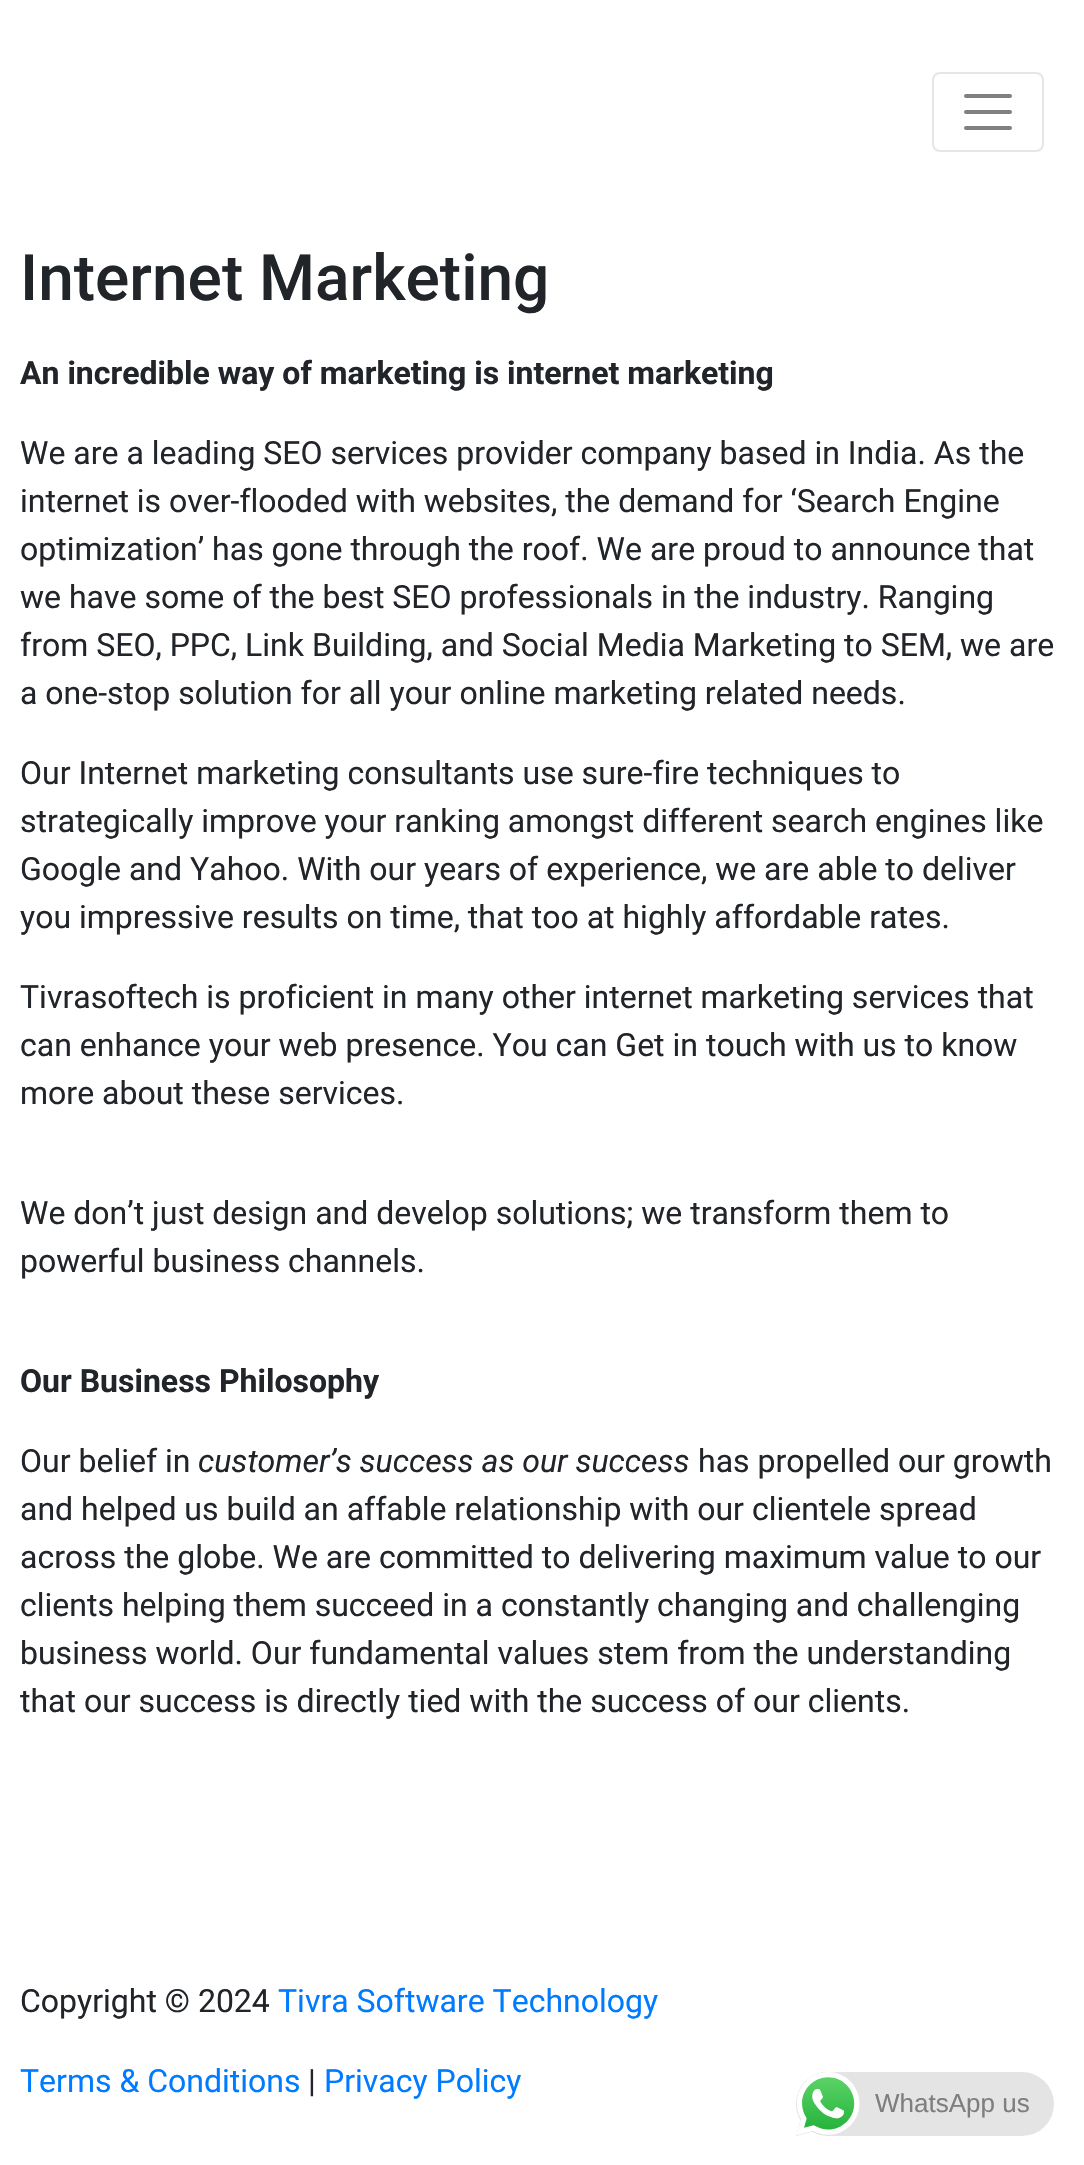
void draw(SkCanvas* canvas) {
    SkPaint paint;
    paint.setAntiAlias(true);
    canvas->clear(0xFFFFFFFF);
    paint.setStyle(SkPaint::kStroke_Style);
    paint.setStrokeWidth(2);
    paint.setColor(0xFFE6E6E6);
    canvas->drawRoundRect(SkRect::MakeXYWH(933, 73, 110, 78), 7, 7, paint);
    paint.setStrokeWidth(4);
    paint.setStrokeCap(SkPaint::kRound_Cap);
    paint.setColor(0xFF808080);
    canvas->drawPath(SkPathBuilder().moveTo(966, 96).lineTo(1010, 96).moveTo(966, 112).lineTo(1010, 112).moveTo(966, 128).lineTo(1010, 128).detach(), paint);
    SkFont font1(fontMgr->matchFamilyStyle("Roboto", SkFontStyle(500, SkFontStyle::kNormal_Width, SkFontStyle::kUpright_Slant)), 64);
    font1.setSubpixel(true);
    paint.setStyle(SkPaint::kFill_Style);
    paint.setColor(0xFF212529);
    canvas->drawString("Internet Marketing", 20, 300, font1, paint);
    SkFont font2(fontMgr->matchFamilyStyle("Roboto", SkFontStyle::Bold()), 32);
    font2.setSubpixel(true);
    canvas->drawString("An incredible way of marketing is internet marketing", 20, 384, font2, paint);
    SkFont font3(fontMgr->matchFamilyStyle("Roboto", SkFontStyle::Normal()), 32);
    font3.setSubpixel(true);
    canvas->drawString("We are a leading SEO services provider company based in India. As the", 20, 464, font3, paint);
    canvas->drawString("internet is over-flooded with websites, the demand for ‘Search Engine", 20, 512, font3, paint);
    canvas->drawString("optimization’ has gone through the roof. We are proud to announce that", 20, 560, font3, paint);
    canvas->drawString("we have some of the best SEO professionals in the industry. Ranging", 20, 608, font3, paint);
    canvas->drawString("from SEO, PPC, Link Building, and Social Media Marketing to SEM, we are", 20, 656, font3, paint);
    canvas->drawString("a one-stop solution for all your online marketing related needs.", 20, 704, font3, paint);
    canvas->drawString("Our Internet marketing consultants use sure-fire techniques to", 20, 784, font3, paint);
    canvas->drawString("strategically improve your ranking amongst different search engines like", 20, 832, font3, paint);
    canvas->drawString("Google and Yahoo. With our years of experience, we are able to deliver", 20, 880, font3, paint);
    canvas->drawString("you impressive results on time, that too at highly affordable rates.", 20, 928, font3, paint);
    canvas->drawString("Tivrasoftech is proficient in many other internet marketing services that", 20, 1008, font3, paint);
    canvas->drawString("can enhance your web presence. You can Get in touch with us to know", 20, 1056, font3, paint);
    canvas->drawString("more about these services.", 20, 1104, font3, paint);
    canvas->drawString("We don’t just design and develop solutions; we transform them to", 20, 1224, font3, paint);
    canvas->drawString("powerful business channels.", 20, 1272, font3, paint);
    canvas->drawString("Our Business Philosophy", 20, 1392, font2, paint);
    canvas->drawString("Our belief in", 20, 1472, font3, paint);
    SkFont font4(fontMgr->matchFamilyStyle("Roboto", SkFontStyle::Italic()), 32);
    font4.setSubpixel(true);
    canvas->drawString("customer’s success as our success", 198, 1472, font4, paint);
    canvas->drawString("has propelled our growth", 698, 1472, font3, paint);
    canvas->drawString("and helped us build an affable relationship with our clientele spread", 20, 1520, font3, paint);
    canvas->drawString("across the globe. We are committed to delivering maximum value to our", 20, 1568, font3, paint);
    canvas->drawString("clients helping them succeed in a constantly changing and challenging", 20, 1616, font3, paint);
    canvas->drawString("business world. Our fundamental values stem from the understanding", 20, 1664, font3, paint);
    canvas->drawString("that our success is directly tied with the success of our clients.", 20, 1712, font3, paint);
    canvas->drawString("Copyright © 2024", 20, 2012, font3, paint);
    paint.setColor(0xFF007BFF);
    canvas->drawString("Tivra Software Technology", 278, 2012, font3, paint);
    canvas->drawString("Terms & Conditions", 20, 2092, font3, paint);
    paint.setColor(0xFF212529);
    canvas->drawString("|", 308, 2092, font3, paint);
    paint.setColor(0xFF007BFF);
    canvas->drawString("Privacy Policy", 324, 2092, font3, paint);
    paint.setColor(0xFFE4E4E4);
    canvas->drawRoundRect(SkRect::MakeXYWH(796, 2072, 258, 64), 32, 32, paint);
    canvas->drawImageRect(SkImages::DeferredFromEncodedData(SkData::MakeFromFileName("img1.png")), SkRect::MakeXYWH(796, 2072, 64, 64), SkSamplingOptions());
    SkFont font5(fontMgr->matchFamilyStyle("Liberation Sans", SkFontStyle::Normal()), 26);
    font5.setSubpixel(true);
    paint.setColor(0xFF7F7D7D);
    canvas->drawString("WhatsApp us", 875, 2112, font5, paint);
}
